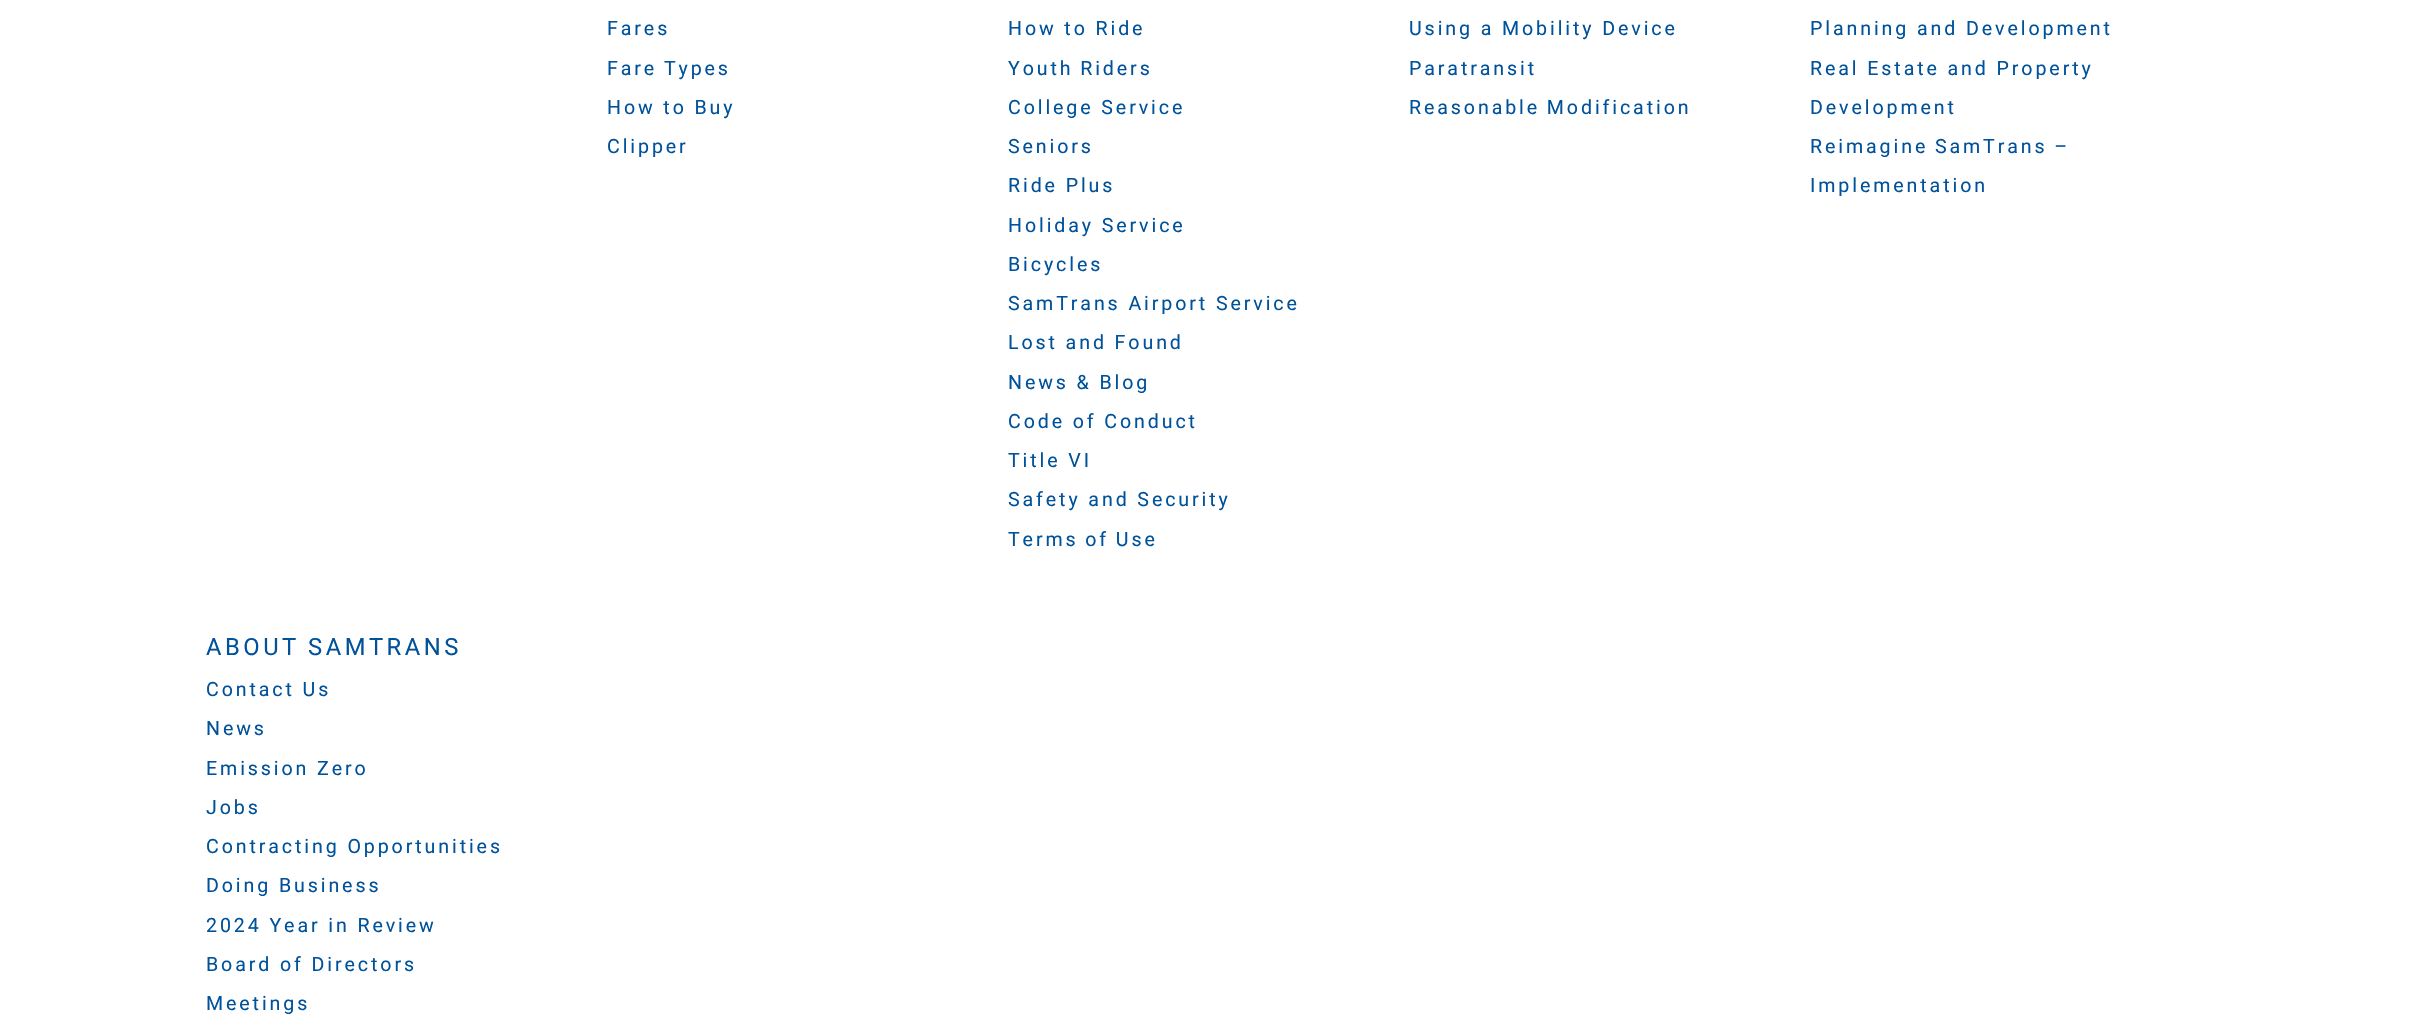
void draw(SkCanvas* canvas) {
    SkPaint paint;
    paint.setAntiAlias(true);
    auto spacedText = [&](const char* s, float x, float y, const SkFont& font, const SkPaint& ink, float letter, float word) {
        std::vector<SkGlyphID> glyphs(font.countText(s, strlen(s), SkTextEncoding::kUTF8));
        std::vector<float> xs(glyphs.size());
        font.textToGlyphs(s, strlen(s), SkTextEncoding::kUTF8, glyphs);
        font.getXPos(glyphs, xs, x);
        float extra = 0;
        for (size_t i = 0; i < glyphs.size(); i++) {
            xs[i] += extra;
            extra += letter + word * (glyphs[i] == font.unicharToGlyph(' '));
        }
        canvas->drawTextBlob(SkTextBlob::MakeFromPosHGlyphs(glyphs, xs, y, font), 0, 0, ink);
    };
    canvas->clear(0xFFFFFFFF);
    SkFont font1(fontMgr->matchFamilyStyle("Roboto", SkFontStyle::Normal()), 19.6f);
    font1.setSubpixel(true);
    paint.setColor(0xFF00529B);
    spacedText("Fares", 607, 35, font1, paint, 2.9f, 0);
    spacedText("Fare Types", 607, 75, font1, paint, 2.9f, -1);
    spacedText("How to Buy", 607, 114, font1, paint, 2.9f, 0);
    spacedText("Clipper", 607, 153, font1, paint, 2.9f, 0);
    spacedText("How to Ride", 1008, 35, font1, paint, 2.9f, 0);
    spacedText("Youth Riders", 1008, 75, font1, paint, 2.9f, -1);
    spacedText("College Service", 1008, 114, font1, paint, 2.9f, 0);
    spacedText("Seniors", 1008, 153, font1, paint, 2.9f, 0);
    spacedText("Ride Plus", 1008, 192, font1, paint, 2.9f, 0);
    spacedText("Holiday Service", 1008, 232, font1, paint, 2.9f, 0);
    spacedText("Bicycles", 1008, 271, font1, paint, 2.9f, 0);
    spacedText("SamTrans Airport Service", 1008, 310, font1, paint, 2.9f, 0);
    spacedText("Lost and Found", 1008, 349, font1, paint, 2.9f, 0);
    spacedText("News & Blog", 1008, 389, font1, paint, 2.9f, 0);
    spacedText("Code of Conduct", 1008, 428, font1, paint, 2.9f, 0);
    spacedText("Title VI", 1008, 467, font1, paint, 2.9f, 0);
    spacedText("Safety and Security", 1008, 506, font1, paint, 2.9f, 0);
    spacedText("Terms of Use", 1008, 546, font1, paint, 2.9f, -1);
    spacedText("Using a Mobility Device", 1409, 35, font1, paint, 2.9f, 0);
    spacedText("Paratransit", 1409, 75, font1, paint, 2.9f, 0);
    spacedText("Reasonable Modification", 1409, 114, font1, paint, 2.9f, -1);
    spacedText("Planning and Development", 1810, 35, font1, paint, 2.9f, 0);
    spacedText("Real Estate and Property", 1810, 75, font1, paint, 2.9f, 0);
    spacedText("Development", 1810, 114, font1, paint, 2.9f, 0);
    spacedText("Reimagine SamTrans –", 1810, 153, font1, paint, 2.9f, -1);
    spacedText("Implementation", 1810, 192, font1, paint, 2.9f, 0);
    SkFont font2(fontMgr->matchFamilyStyle("Roboto", SkFontStyle::Normal()), 23.75f);
    font2.setSubpixel(true);
    spacedText("ABOUT SAMTRANS", 206, 655, font2, paint, 3.5f, -1);
    spacedText("Contact Us", 206, 696, font1, paint, 2.9f, 0);
    spacedText("News", 206, 735, font1, paint, 2.9f, 0);
    spacedText("Emission Zero", 206, 775, font1, paint, 2.9f, 0);
    spacedText("Jobs", 206, 814, font1, paint, 2.9f, 0);
    spacedText("Contracting Opportunities", 206, 853, font1, paint, 2.9f, 0);
    spacedText("Doing Business", 206, 892, font1, paint, 2.9f, 0);
    spacedText("2024 Year in Review", 206, 932, font1, paint, 2.9f, 0);
    spacedText("Board of Directors", 206, 971, font1, paint, 2.9f, 0);
    spacedText("Meetings", 206, 1010, font1, paint, 2.9f, 0);
}
